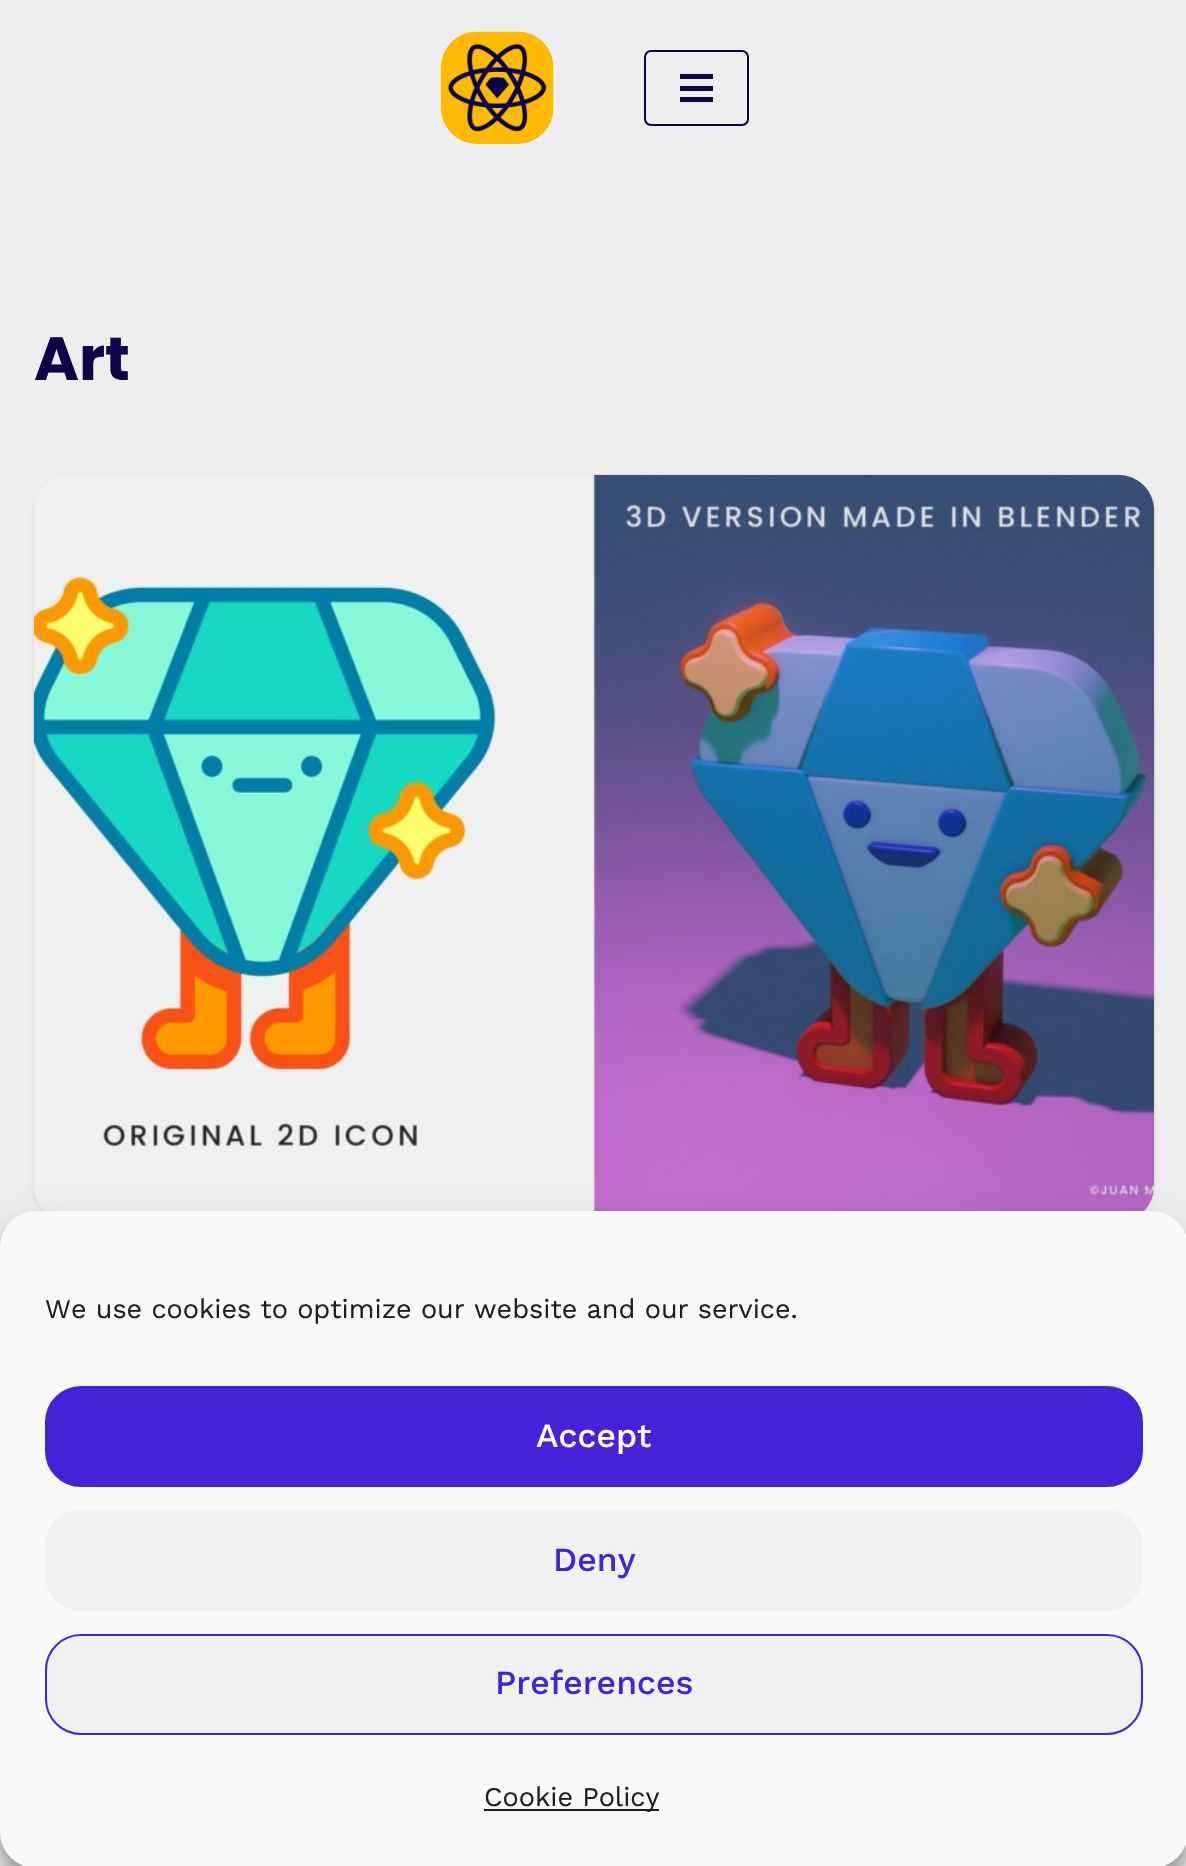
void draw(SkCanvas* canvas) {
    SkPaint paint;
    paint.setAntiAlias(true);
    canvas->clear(0xFFEEEEEE);
    canvas->drawImageRect(SkImages::DeferredFromEncodedData(SkData::MakeFromFileName("img1.png")), SkRect::MakeXYWH(441, 31, 113, 113), SkSamplingOptions());
    paint.setStyle(SkPaint::kStroke_Style);
    paint.setStrokeWidth(2);
    paint.setColor(0xFF0E0448);
    canvas->drawRoundRect(SkRect::MakeXYWH(645, 51, 103, 74), 6, 6, paint);
    paint.setStyle(SkPaint::kFill_Style);
    canvas->drawRect(SkRect::MakeXYWH(680, 74, 33, 5), paint);
    canvas->drawRect(SkRect::MakeXYWH(680, 86, 33, 5), paint);
    canvas->drawRect(SkRect::MakeXYWH(680, 97, 33, 5), paint);
    SkFont font1(fontMgr->matchFamilyStyle("Poppins", SkFontStyle::Bold()), 61);
    font1.setSubpixel(true);
    canvas->drawString("Art", 34, 380, font1, paint);
    paint.setColor(0x1A000000);
    paint.setMaskFilter(SkMaskFilter::MakeBlur(kNormal_SkBlurStyle, 2));
    canvas->drawRoundRect(SkRect::MakeXYWH(34, 477, 1120, 747), 36, 36, paint);
    paint.setMaskFilter(nullptr);
    canvas->drawImageRect(SkImages::DeferredFromEncodedData(SkData::MakeFromFileName("img2.png")), SkRect::MakeXYWH(33, 474, 1122, 737), SkSamplingOptions());
    paint.setColor(0x3B000000);
    paint.setMaskFilter(SkMaskFilter::MakeBlur(kNormal_SkBlurStyle, 7));
    canvas->drawRoundRect(SkRect::MakeXYWH(0, 1224, 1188, 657), 36, 36, paint);
    paint.setMaskFilter(nullptr);
    paint.setColor(0x30000000);
    paint.setMaskFilter(SkMaskFilter::MakeBlur(kNormal_SkBlurStyle, 22.5f));
    canvas->drawRoundRect(SkRect::MakeXYWH(0, 1233, 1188, 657), 36, 36, paint);
    paint.setMaskFilter(nullptr);
    paint.setColor(0xFFF9F9F9);
    canvas->drawRoundRect(SkRect::MakeXYWH(0, 1211, 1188, 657), 36, 36, paint);
    SkFont font2(fontMgr->matchFamilyStyle("Work Sans", SkFontStyle::Normal()), 27);
    font2.setSubpixel(true);
    paint.setColor(0xFF191E23);
    canvas->drawString("We use cookies to optimize our website and our service.", 45, 1318, font2, paint);
    paint.setColor(0xFF4422D7);
    canvas->drawRoundRect(SkRect::MakeXYWH(46, 1387, 1096, 99), 35, 35, paint);
    paint.setStyle(SkPaint::kStroke_Style);
    canvas->drawRoundRect(SkRect::MakeXYWH(46, 1387, 1096, 99), 35, 35, paint);
    SkFont font3(fontMgr->matchFamilyStyle("Work Sans", SkFontStyle(500, SkFontStyle::kNormal_Width, SkFontStyle::kUpright_Slant)), 33.75f);
    font3.setSubpixel(true);
    paint.setStyle(SkPaint::kFill_Style);
    paint.setColor(0xFFFFFFFF);
    canvas->drawString("Accept", 536, 1447, font3, paint);
    paint.setColor(0xFFF1F1F1);
    canvas->drawRoundRect(SkRect::MakeXYWH(45, 1510, 1098, 101), 36, 36, paint);
    paint.setColor(0xFF4422D7);
    canvas->drawString("Deny", 553, 1571, font3, paint);
    paint.setColor(0xFFF1F1F1);
    canvas->drawRoundRect(SkRect::MakeXYWH(46, 1635, 1096, 99), 35, 35, paint);
    paint.setStyle(SkPaint::kStroke_Style);
    paint.setColor(0xFF4422D7);
    canvas->drawRoundRect(SkRect::MakeXYWH(46, 1635, 1096, 99), 35, 35, paint);
    paint.setStyle(SkPaint::kFill_Style);
    canvas->drawString("Preferences", 495, 1694, font3, paint);
    paint.setColor(0xFF191E23);
    canvas->drawRect(SkRect::MakeXYWH(484, 1809, 175, 2), paint);
    canvas->drawString("Cookie Policy", 484, 1806, font2, paint);
}
